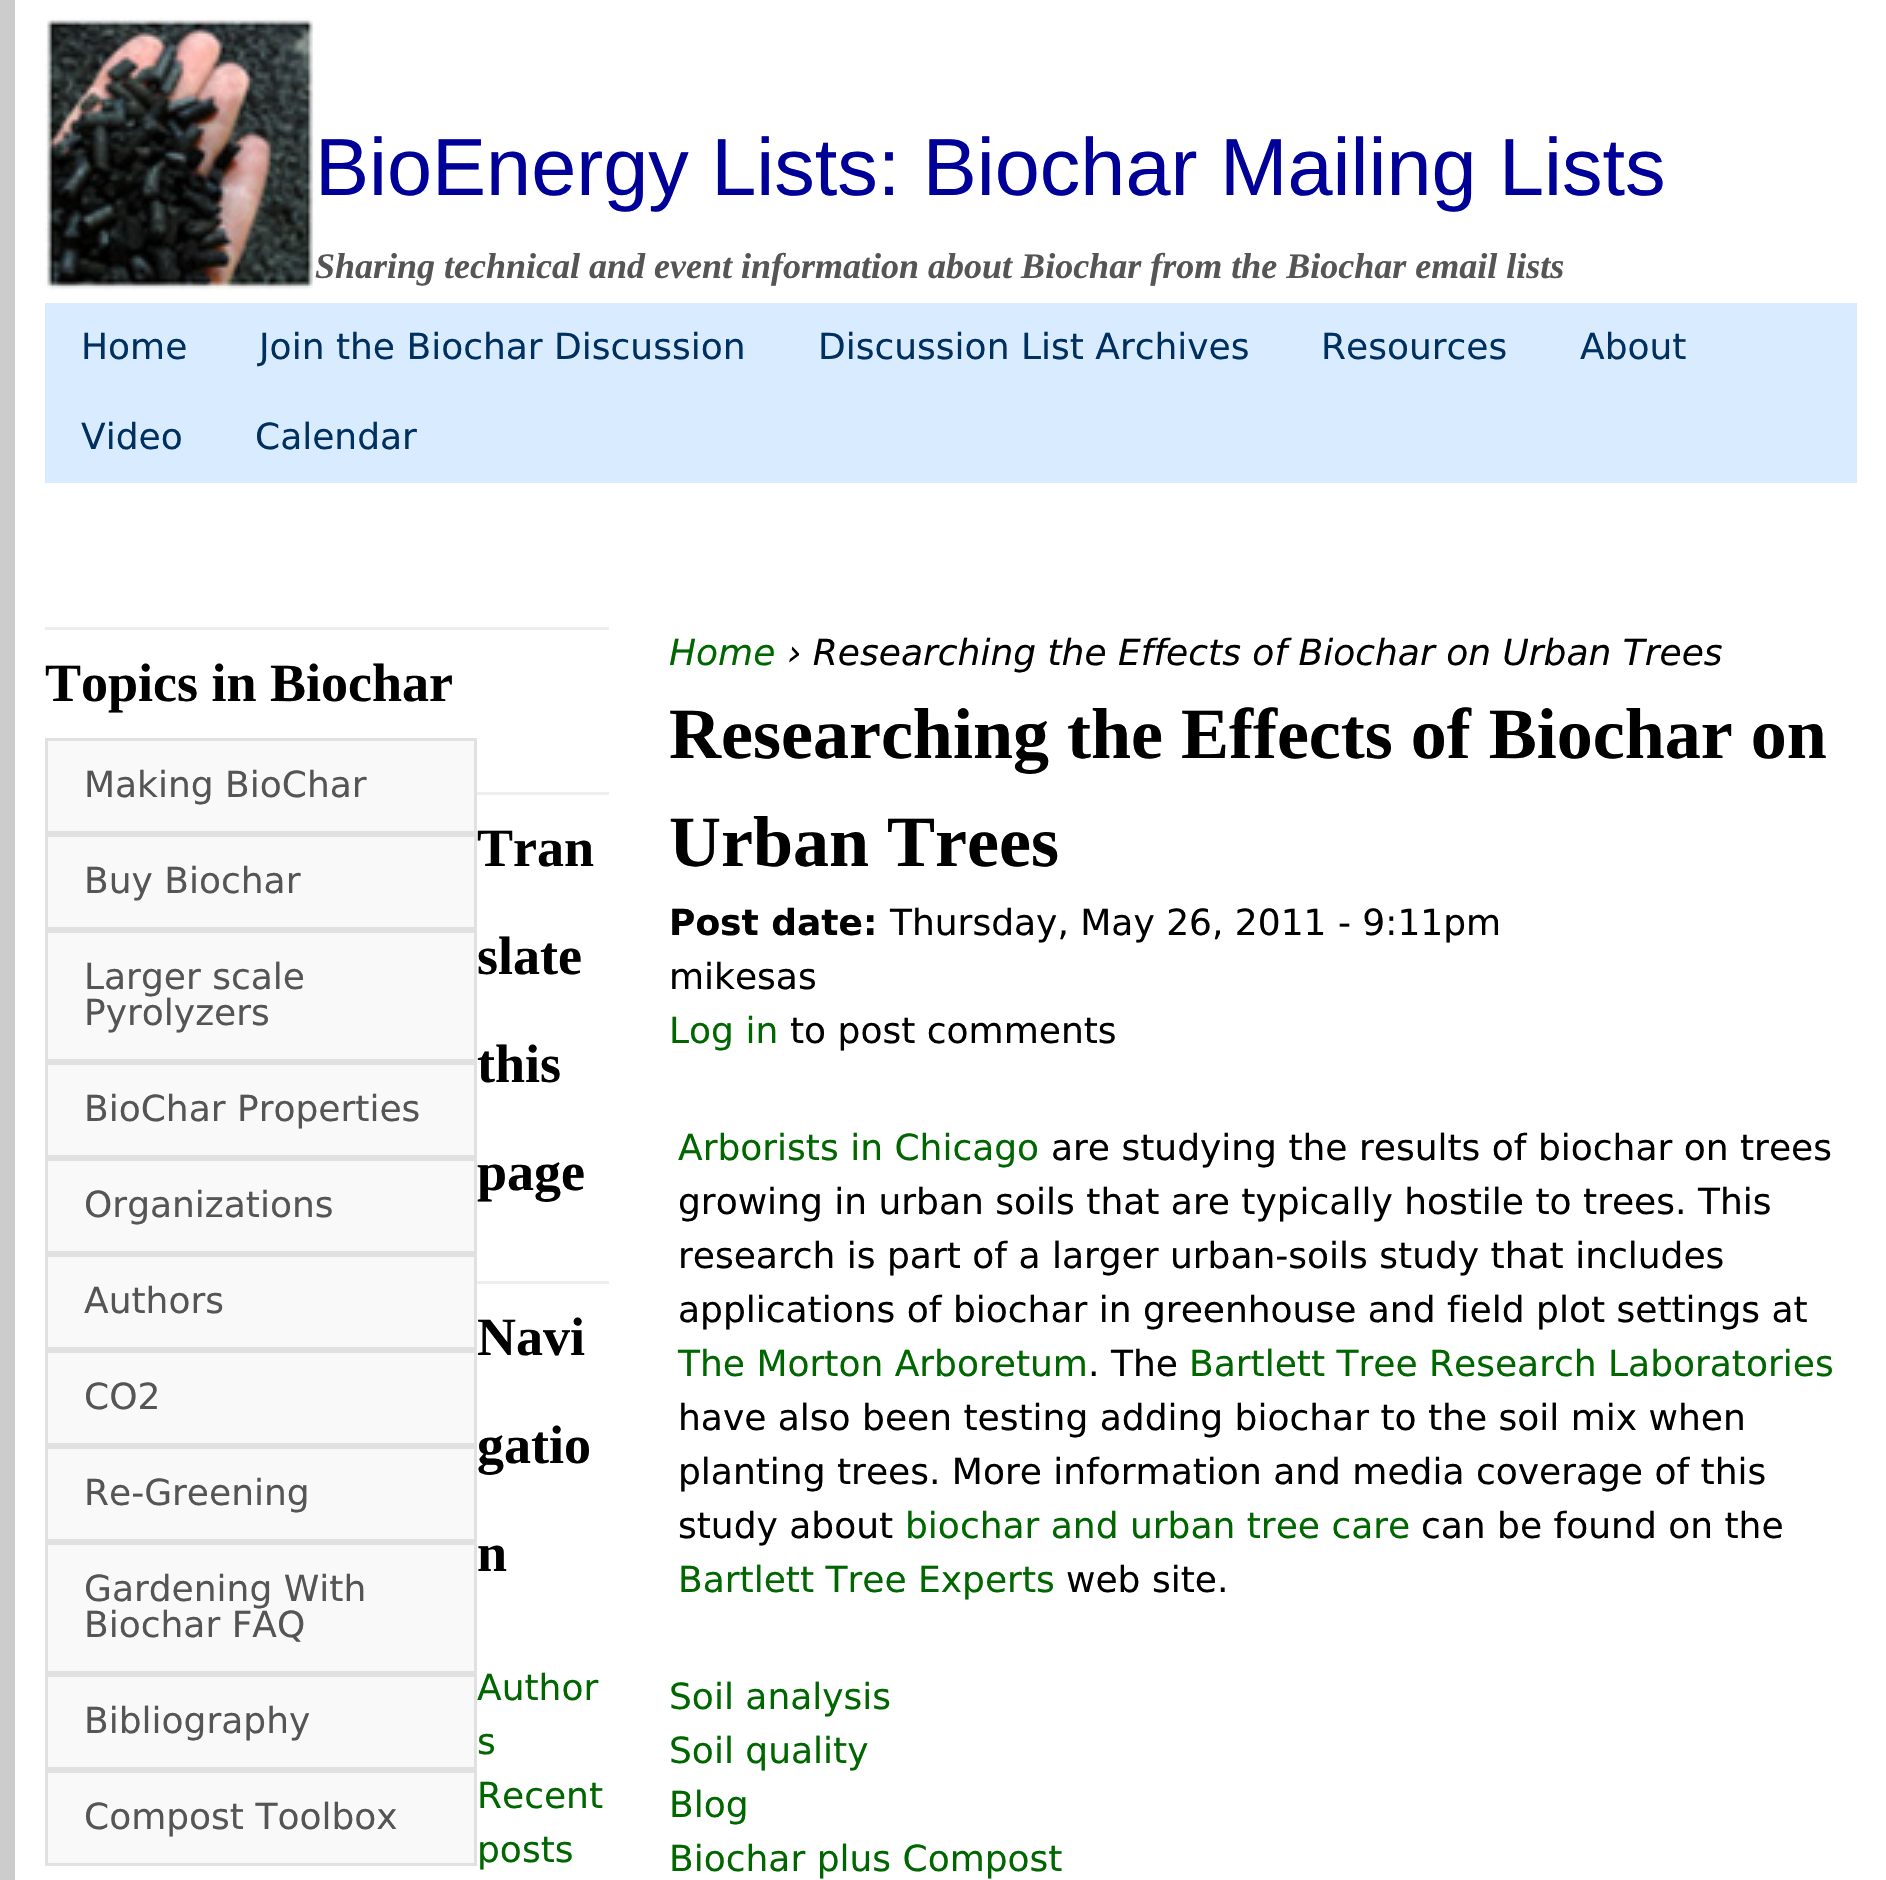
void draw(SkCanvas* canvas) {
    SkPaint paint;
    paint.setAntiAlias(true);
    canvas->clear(0xFFFFFFFF);
    paint.setColor(0xFFCCCCCC);
    canvas->drawPath(SkPathBuilder().moveTo(0, 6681).lineTo(0, 0).lineTo(15, 0).lineTo(15, 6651).close().detach(), paint);
    canvas->drawImageRect(SkImages::DeferredFromEncodedData(SkData::MakeFromFileName("img1.png")), SkRect::MakeXYWH(45, 18, 270, 273), SkSamplingOptions());
    SkFont font1(fontMgr->matchFamilyStyle("Liberation Sans", SkFontStyle::Normal()), 81);
    font1.setSubpixel(true);
    paint.setColor(0xFF000099);
    canvas->drawString("BioEnergy Lists: Biochar Mailing Lists", 315, 195, font1, paint);
    SkFont font2(fontMgr->matchFamilyStyle("Liberation Serif", SkFontStyle::BoldItalic()), 36);
    font2.setSubpixel(true);
    paint.setColor(0xFF555555);
    canvas->drawString("Sharing technical and event information about Biochar from the Biochar email lists", 315, 278, font2, paint);
    paint.setColor(0xFFD9ECFF);
    canvas->drawRect(SkRect::MakeXYWH(45, 303, 1812, 180), paint);
    SkFont font3(fontMgr->matchFamilyStyle("DejaVu Sans", SkFontStyle::Normal()), 36);
    font3.setSubpixel(true);
    paint.setColor(0xFF00305F);
    canvas->drawString("Home", 81, 359, font3, paint);
    canvas->drawString("Join the Biochar Discussion", 259, 359, font3, paint);
    canvas->drawString("Discussion List Archives", 818, 359, font3, paint);
    canvas->drawString("Resources", 1321, 359, font3, paint);
    canvas->drawString("About", 1580, 359, font3, paint);
    canvas->drawString("Video", 81, 449, font3, paint);
    canvas->drawString("Calendar", 255, 449, font3, paint);
    paint.setColor(0xFFEEEEEE);
    canvas->drawRect(SkRect::MakeXYWH(45, 627, 564, 3), paint);
    SkFont font4(fontMgr->matchFamilyStyle("Liberation Serif", SkFontStyle::Bold()), 54);
    font4.setSubpixel(true);
    paint.setColor(0xFF000000);
    canvas->drawString("Topics in Biochar", 45, 701, font4, paint);
    paint.setColor(0xFFF9F9F9);
    canvas->drawRect(SkRect::MakeXYWH(46.5f, 739.5f, 429, 93), paint);
    paint.setStyle(SkPaint::kStroke_Style);
    paint.setStrokeWidth(3);
    paint.setColor(0xFFE1E1E1);
    canvas->drawRect(SkRect::MakeXYWH(46.5f, 739.5f, 429, 93), paint);
    paint.setStyle(SkPaint::kFill_Style);
    paint.setColor(0xFF555555);
    canvas->drawString("Making BioChar", 84, 797, font3, paint);
    paint.setColor(0xFFF9F9F9);
    canvas->drawRect(SkRect::MakeXYWH(46.5f, 835.5f, 429, 93), paint);
    paint.setStyle(SkPaint::kStroke_Style);
    paint.setColor(0xFFE1E1E1);
    canvas->drawRect(SkRect::MakeXYWH(46.5f, 835.5f, 429, 93), paint);
    paint.setStyle(SkPaint::kFill_Style);
    paint.setColor(0xFF555555);
    canvas->drawString("Buy Biochar", 84, 893, font3, paint);
    paint.setColor(0xFFF9F9F9);
    canvas->drawRect(SkRect::MakeXYWH(46.5f, 931.5f, 429, 129), paint);
    paint.setStyle(SkPaint::kStroke_Style);
    paint.setColor(0xFFE1E1E1);
    canvas->drawRect(SkRect::MakeXYWH(46.5f, 931.5f, 429, 129), paint);
    paint.setStyle(SkPaint::kFill_Style);
    paint.setColor(0xFF555555);
    canvas->drawString("Larger scale", 84, 989, font3, paint);
    canvas->drawString("Pyrolyzers", 84, 1025, font3, paint);
    paint.setColor(0xFFF9F9F9);
    canvas->drawRect(SkRect::MakeXYWH(46.5f, 1063.5f, 429, 93), paint);
    paint.setStyle(SkPaint::kStroke_Style);
    paint.setColor(0xFFE1E1E1);
    canvas->drawRect(SkRect::MakeXYWH(46.5f, 1063.5f, 429, 93), paint);
    paint.setStyle(SkPaint::kFill_Style);
    paint.setColor(0xFF555555);
    canvas->drawString("BioChar Properties", 84, 1121, font3, paint);
    paint.setColor(0xFFF9F9F9);
    canvas->drawRect(SkRect::MakeXYWH(46.5f, 1159.5f, 429, 93), paint);
    paint.setStyle(SkPaint::kStroke_Style);
    paint.setColor(0xFFE1E1E1);
    canvas->drawRect(SkRect::MakeXYWH(46.5f, 1159.5f, 429, 93), paint);
    paint.setStyle(SkPaint::kFill_Style);
    paint.setColor(0xFF555555);
    canvas->drawString("Organizations", 84, 1217, font3, paint);
    paint.setColor(0xFFF9F9F9);
    canvas->drawRect(SkRect::MakeXYWH(46.5f, 1255.5f, 429, 93), paint);
    paint.setStyle(SkPaint::kStroke_Style);
    paint.setColor(0xFFE1E1E1);
    canvas->drawRect(SkRect::MakeXYWH(46.5f, 1255.5f, 429, 93), paint);
    paint.setStyle(SkPaint::kFill_Style);
    paint.setColor(0xFF555555);
    canvas->drawString("Authors", 84, 1313, font3, paint);
    paint.setColor(0xFFF9F9F9);
    canvas->drawRect(SkRect::MakeXYWH(46.5f, 1351.5f, 429, 93), paint);
    paint.setStyle(SkPaint::kStroke_Style);
    paint.setColor(0xFFE1E1E1);
    canvas->drawRect(SkRect::MakeXYWH(46.5f, 1351.5f, 429, 93), paint);
    paint.setStyle(SkPaint::kFill_Style);
    paint.setColor(0xFF555555);
    canvas->drawString("CO2", 84, 1409, font3, paint);
    paint.setColor(0xFFF9F9F9);
    canvas->drawRect(SkRect::MakeXYWH(46.5f, 1447.5f, 429, 93), paint);
    paint.setStyle(SkPaint::kStroke_Style);
    paint.setColor(0xFFE1E1E1);
    canvas->drawRect(SkRect::MakeXYWH(46.5f, 1447.5f, 429, 93), paint);
    paint.setStyle(SkPaint::kFill_Style);
    paint.setColor(0xFF555555);
    canvas->drawString("Re-Greening", 84, 1505, font3, paint);
    paint.setColor(0xFFF9F9F9);
    canvas->drawRect(SkRect::MakeXYWH(46.5f, 1543.5f, 429, 129), paint);
    paint.setStyle(SkPaint::kStroke_Style);
    paint.setColor(0xFFE1E1E1);
    canvas->drawRect(SkRect::MakeXYWH(46.5f, 1543.5f, 429, 129), paint);
    paint.setStyle(SkPaint::kFill_Style);
    paint.setColor(0xFF555555);
    canvas->drawString("Gardening With", 84, 1601, font3, paint);
    canvas->drawString("Biochar FAQ", 84, 1637, font3, paint);
    paint.setColor(0xFFF9F9F9);
    canvas->drawRect(SkRect::MakeXYWH(46.5f, 1675.5f, 429, 93), paint);
    paint.setStyle(SkPaint::kStroke_Style);
    paint.setColor(0xFFE1E1E1);
    canvas->drawRect(SkRect::MakeXYWH(46.5f, 1675.5f, 429, 93), paint);
    paint.setStyle(SkPaint::kFill_Style);
    paint.setColor(0xFF555555);
    canvas->drawString("Bibliography", 84, 1733, font3, paint);
    paint.setColor(0xFFF9F9F9);
    canvas->drawRect(SkRect::MakeXYWH(46.5f, 1771.5f, 429, 93), paint);
    paint.setStyle(SkPaint::kStroke_Style);
    paint.setColor(0xFFE1E1E1);
    canvas->drawRect(SkRect::MakeXYWH(46.5f, 1771.5f, 429, 93), paint);
    paint.setStyle(SkPaint::kFill_Style);
    paint.setColor(0xFF555555);
    canvas->drawString("Compost Toolbox", 84, 1829, font3, paint);
    paint.setColor(0xFFEEEEEE);
    canvas->drawRect(SkRect::MakeXYWH(477, 792, 132, 3), paint);
    paint.setColor(0xFF000000);
    canvas->drawString("Tran", 477, 866, font4, paint);
    canvas->drawString("slate", 477, 974, font4, paint);
    canvas->drawString("this", 477, 1082, font4, paint);
    canvas->drawString("page", 477, 1190, font4, paint);
    paint.setColor(0xFFEEEEEE);
    canvas->drawRect(SkRect::MakeXYWH(477, 1281, 132, 3), paint);
    paint.setColor(0xFF000000);
    canvas->drawString("Navi", 477, 1355, font4, paint);
    canvas->drawString("gatio", 477, 1463, font4, paint);
    canvas->drawString("n", 477, 1571, font4, paint);
    paint.setColor(0xFF006600);
    canvas->drawString("Author", 477, 1700, font3, paint);
    canvas->drawString("s", 477, 1754, font3, paint);
    canvas->drawString("Recent", 477, 1808, font3, paint);
    canvas->drawString("posts", 477, 1862, font3, paint);
    SkFont font5(fontMgr->matchFamilyStyle("DejaVu Sans", SkFontStyle::Italic()), 36);
    font5.setSubpixel(true);
    canvas->drawString("Home", 669, 665, font5, paint);
    paint.setColor(0xFF000000);
    canvas->drawString("› Researching the Effects of Biochar on Urban Trees", 787, 665, font5, paint);
    SkFont font6(fontMgr->matchFamilyStyle("Liberation Serif", SkFontStyle::Bold()), 72);
    font6.setSubpixel(true);
    canvas->drawString("Researching the Effects of Biochar on", 669, 758, font6, paint);
    canvas->drawString("Urban Trees", 669, 866, font6, paint);
    SkFont font7(fontMgr->matchFamilyStyle("DejaVu Sans", SkFontStyle::Bold()), 36);
    font7.setSubpixel(true);
    canvas->drawString("Post date:", 669, 935, font7, paint);
    canvas->drawString("Thursday, May 26, 2011 - 9:11pm", 890, 935, font3, paint);
    canvas->drawString("mikesas", 669, 989, font3, paint);
    paint.setColor(0xFF006600);
    canvas->drawString("Log in", 669, 1043, font3, paint);
    paint.setColor(0xFF000000);
    canvas->drawString("to post comments", 790, 1043, font3, paint);
    paint.setColor(0xFF006600);
    canvas->drawString("Arborists in Chicago", 678, 1160, font3, paint);
    paint.setColor(0xFF000000);
    canvas->drawString("are studying the results of biochar on trees", 1051, 1160, font3, paint);
    canvas->drawString("growing in urban soils that are typically hostile to trees. This", 678, 1214, font3, paint);
    canvas->drawString("research is part of a larger urban-soils study that includes", 678, 1268, font3, paint);
    canvas->drawString("applications of biochar in greenhouse and field plot settings at", 678, 1322, font3, paint);
    paint.setColor(0xFF006600);
    canvas->drawString("The Morton Arboretum", 678, 1376, font3, paint);
    paint.setColor(0xFF000000);
    canvas->drawString(". The", 1088, 1376, font3, paint);
    paint.setColor(0xFF006600);
    canvas->drawString("Bartlett Tree Research Laboratories", 1189, 1376, font3, paint);
    paint.setColor(0xFF000000);
    canvas->drawString("have also been testing adding biochar to the soil mix when", 678, 1430, font3, paint);
    canvas->drawString("planting trees. More information and media coverage of this", 678, 1484, font3, paint);
    canvas->drawString("study about", 678, 1538, font3, paint);
    paint.setColor(0xFF006600);
    canvas->drawString("biochar and urban tree care", 905, 1538, font3, paint);
    paint.setColor(0xFF000000);
    canvas->drawString("can be found on the", 1421, 1538, font3, paint);
    paint.setColor(0xFF006600);
    canvas->drawString("Bartlett Tree Experts", 678, 1592, font3, paint);
    paint.setColor(0xFF000000);
    canvas->drawString("web site.", 1066, 1592, font3, paint);
    paint.setColor(0xFF006600);
    canvas->drawString("Soil analysis", 669, 1709, font3, paint);
    canvas->drawString("Soil quality", 669, 1763, font3, paint);
    canvas->drawString("Blog", 669, 1817, font3, paint);
    canvas->drawString("Biochar plus Compost", 669, 1871, font3, paint);
}
